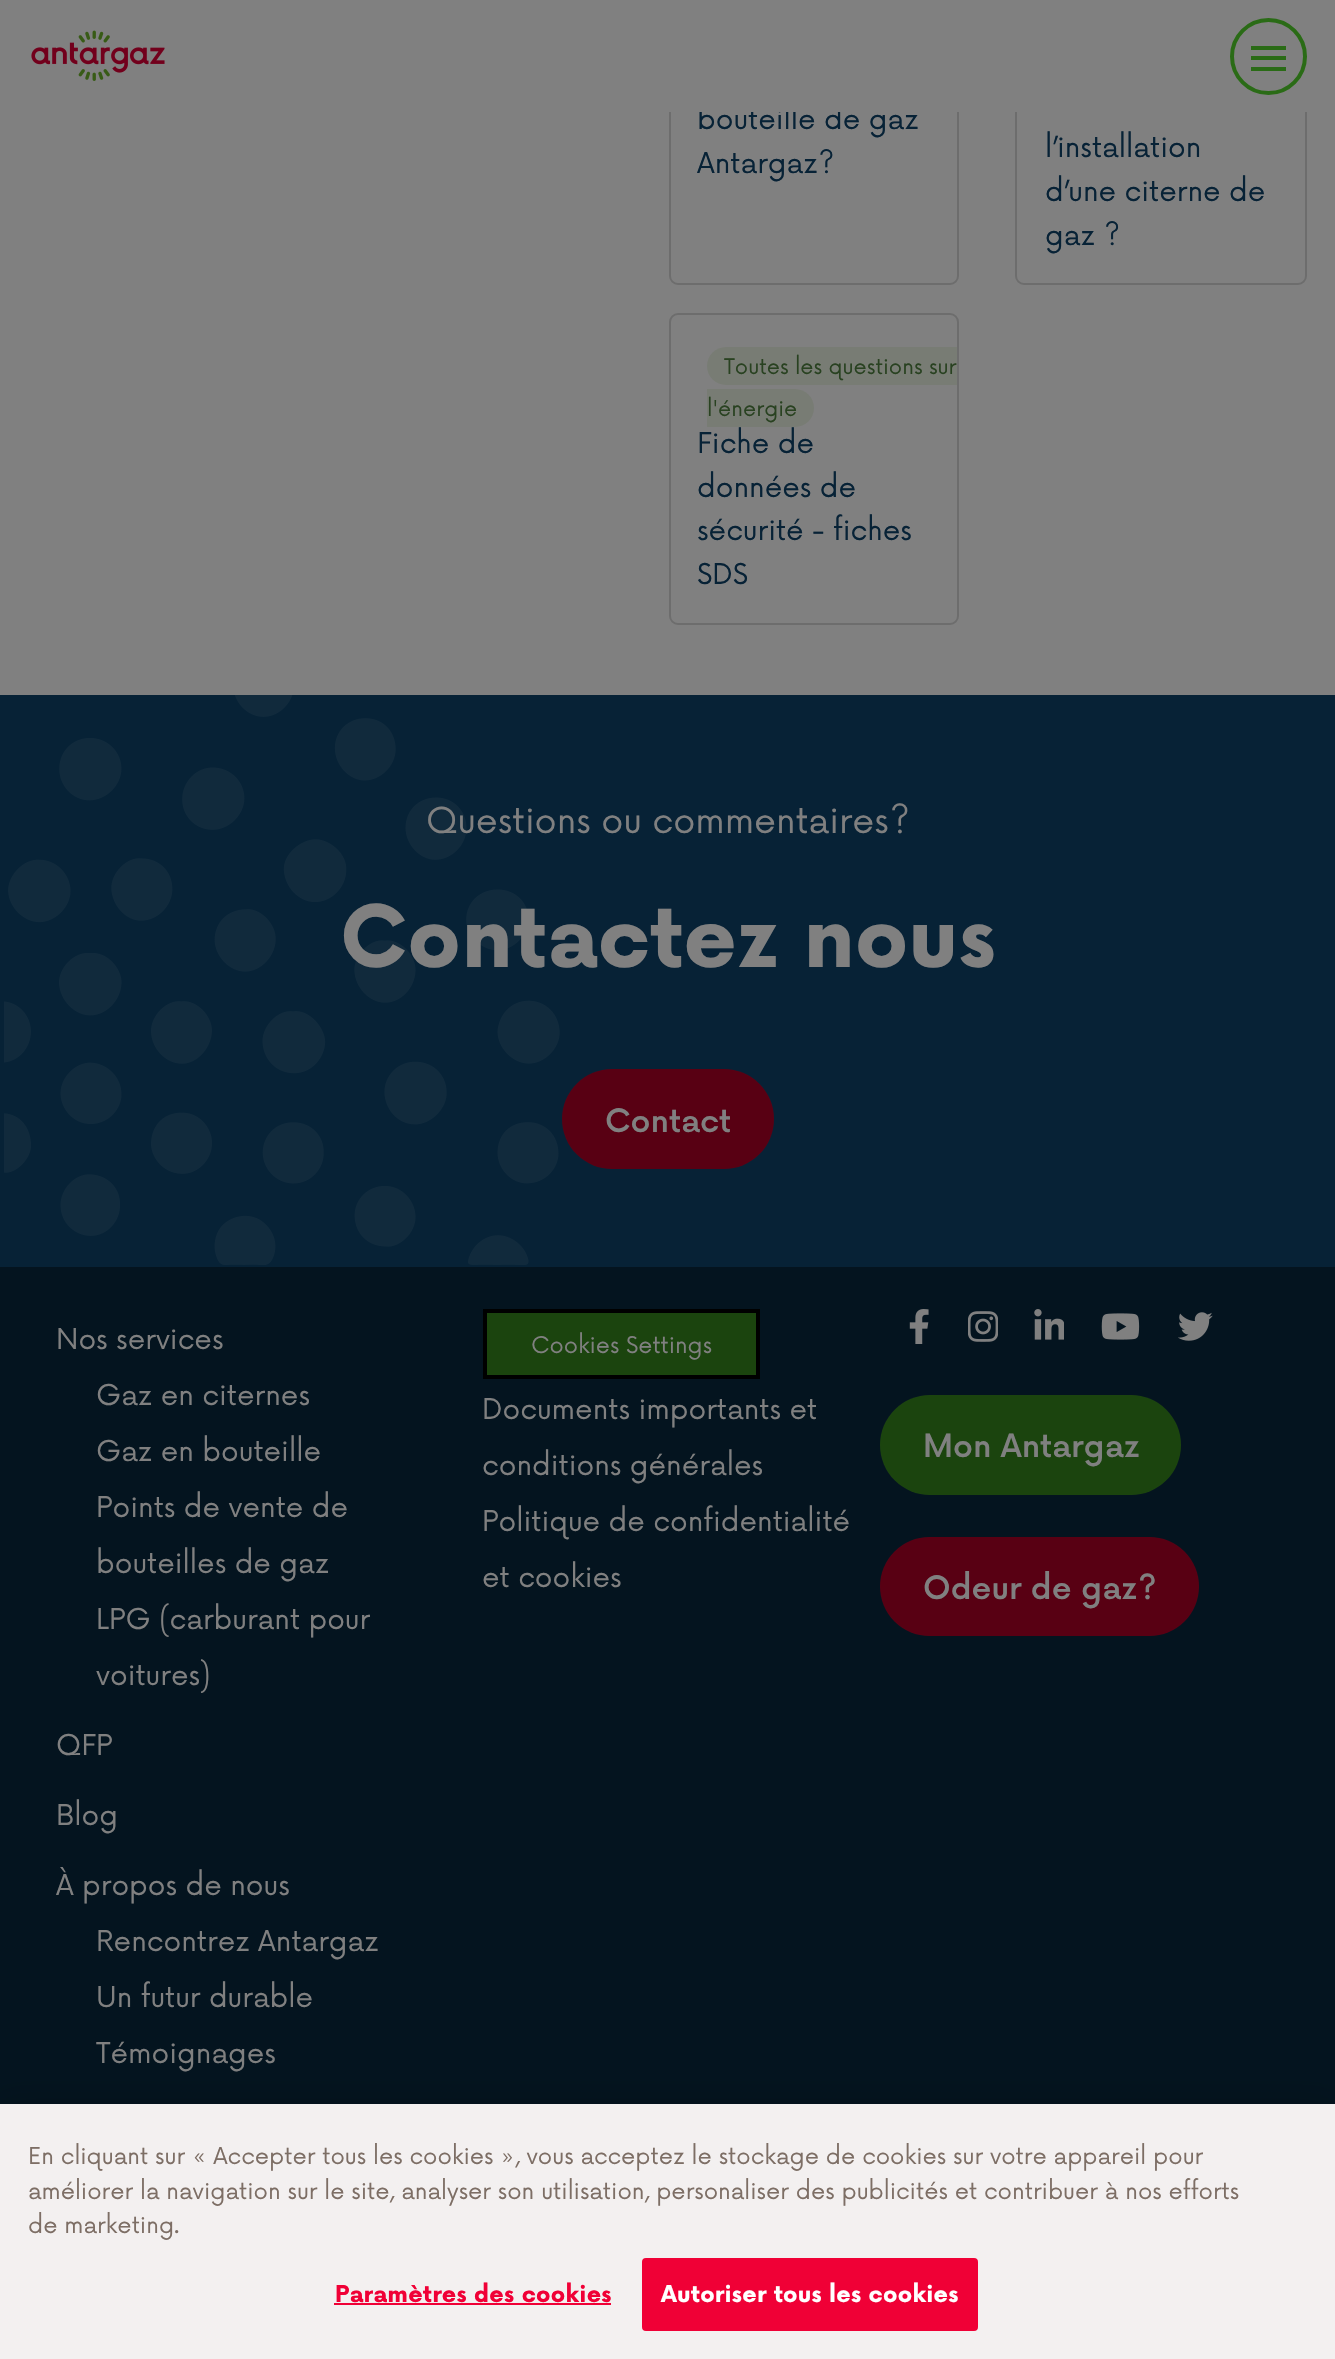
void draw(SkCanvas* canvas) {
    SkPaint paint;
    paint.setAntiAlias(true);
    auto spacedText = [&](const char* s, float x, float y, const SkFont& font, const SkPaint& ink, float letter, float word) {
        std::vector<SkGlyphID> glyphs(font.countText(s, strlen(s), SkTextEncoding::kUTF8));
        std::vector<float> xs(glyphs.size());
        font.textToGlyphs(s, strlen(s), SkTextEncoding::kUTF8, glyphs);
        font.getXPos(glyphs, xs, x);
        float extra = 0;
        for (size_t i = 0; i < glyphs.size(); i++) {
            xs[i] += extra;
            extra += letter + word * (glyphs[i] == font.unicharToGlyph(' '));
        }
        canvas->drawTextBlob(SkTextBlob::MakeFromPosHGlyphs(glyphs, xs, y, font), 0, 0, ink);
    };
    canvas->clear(0xFF808080);
    paint.setStyle(SkPaint::kStroke_Style);
    paint.setStrokeWidth(2);
    paint.setColor(0xFF6D6D6D);
    canvas->drawRoundRect(SkRect::MakeXYWH(670, -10, 288, 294), 8, 8, paint);
    SkFont font1(fontMgr->matchFamilyStyle("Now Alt", SkFontStyle::Normal()), 28);
    font1.setSubpixel(true);
    paint.setStyle(SkPaint::kFill_Style);
    paint.setColor(0xFF072236);
    canvas->drawString("bouteille de gaz", 697, 129, font1, paint);
    paint.setStyle(SkPaint::kStroke_Style);
    paint.setColor(0xFF6D6D6D);
    canvas->drawRoundRect(SkRect::MakeXYWH(1016, -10, 290, 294), 8, 8, paint);
    paint.setStyle(SkPaint::kFill_Style);
    paint.setColor(0xFF808080);
    canvas->drawRect(SkRect::MakeXYWH(669, 0, 638, 112), paint);
    canvas->drawImageRect(SkImages::DeferredFromEncodedData(SkData::MakeFromFileName("img1.png")), SkRect::MakeXYWH(31, 30, 134, 51), SkSamplingOptions());
    paint.setStyle(SkPaint::kStroke_Style);
    paint.setStrokeWidth(4);
    paint.setColor(0xFF2A6B16);
    canvas->drawCircle(1268.5f, 56.5f, 36.5f, paint);
    paint.setStyle(SkPaint::kFill_Style);
    canvas->drawRect(SkRect::MakeXYWH(1251, 46, 35, 4), paint);
    canvas->drawRect(SkRect::MakeXYWH(1251, 56, 35, 4), paint);
    canvas->drawRect(SkRect::MakeXYWH(1251, 67, 35, 4), paint);
    paint.setColor(0xFF072236);
    canvas->drawString("Antargaz?", 697, 173, font1, paint);
    canvas->drawString("l’installation", 1045, 157, font1, paint);
    canvas->drawString("d’une citerne de", 1045, 201, font1, paint);
    canvas->drawString("gaz ?", 1045, 245, font1, paint);
    paint.setStyle(SkPaint::kStroke_Style);
    paint.setStrokeWidth(2);
    paint.setColor(0xFF6D6D6D);
    canvas->drawRoundRect(SkRect::MakeXYWH(670, 314, 288, 310), 8, 8, paint);
    paint.setStyle(SkPaint::kFill_Style);
    paint.setColor(0xFF787C74);
    canvas->drawPath(SkPathBuilder().moveTo(726, 347).lineTo(957, 347).lineTo(957, 385).lineTo(726, 385).cubicTo(715.5f, 385, 707, 376.5f, 707, 366).cubicTo(707, 355.5f, 715.5f, 347, 726, 347).close().detach(), paint);
    SkFont font2(fontMgr->matchFamilyStyle("Now Alt", SkFontStyle::Normal()), 21);
    font2.setSubpixel(true);
    paint.setColor(0xFF294221);
    canvas->drawString("Toutes les questions sur", 724, 374, font2, paint);
    paint.setColor(0xFF787C74);
    canvas->drawPath(SkPathBuilder().moveTo(707, 389).lineTo(795, 389).cubicTo(805.5f, 389, 814, 397.5f, 814, 408).cubicTo(814, 418.5f, 805.5f, 427, 795, 427).lineTo(707, 427).close().detach(), paint);
    paint.setColor(0xFF294221);
    canvas->drawString("l'énergie", 707, 416, font2, paint);
    paint.setColor(0xFF072236);
    canvas->drawString("Fiche de", 697, 453, font1, paint);
    canvas->drawString("données de", 697, 497, font1, paint);
    canvas->drawString("sécurité - fiches", 697, 540, font1, paint);
    canvas->drawString("SDS", 697, 584, font1, paint);
    paint.setColor(0xFF04141F);
    canvas->drawRect(SkRect::MakeXYWH(0, 1267, 1335, 837), paint);
    paint.setColor(0xFF072236);
    canvas->drawRect(SkRect::MakeXYWH(0, 695, 1335, 572), paint);
    canvas->drawImageRect(SkImages::DeferredFromEncodedData(SkData::MakeFromFileName("img2.png")), SkRect::MakeXYWH(4, 695, 556, 570), SkSamplingOptions());
    SkFont font3(fontMgr->matchFamilyStyle("Now Alt", SkFontStyle::Normal()), 35);
    font3.setSubpixel(true);
    paint.setColor(0xFF808080);
    canvas->drawString("Questions ou commentaires?", 426, 833, font3, paint);
    SkFont font4(fontMgr->matchFamilyStyle("Now Alt", SkFontStyle::Bold()), 84);
    font4.setSubpixel(true);
    canvas->drawString("Contactez nous", 340, 967, font4, paint);
    paint.setColor(0xFF580013);
    canvas->drawRoundRect(SkRect::MakeXYWH(562, 1069, 212, 100), 50, 50, paint);
    SkFont font5(fontMgr->matchFamilyStyle("Now Alt", SkFontStyle(500, SkFontStyle::kNormal_Width, SkFontStyle::kUpright_Slant)), 31.5f);
    font5.setSubpixel(true);
    paint.setColor(0xFF808080);
    canvas->drawString("Contact", 605, 1132, font5, paint);
    canvas->drawString("Nos services", 56, 1349, font1, paint);
    canvas->drawString("Gaz en citernes", 96, 1405, font1, paint);
    canvas->drawString("Gaz en bouteille", 96, 1461, font1, paint);
    canvas->drawString("Points de vente de", 96, 1517, font1, paint);
    canvas->drawString("bouteilles de gaz", 96, 1573, font1, paint);
    canvas->drawString("LPG (carburant pour", 96, 1629, font1, paint);
    canvas->drawString("voitures)", 96, 1685, font1, paint);
    canvas->drawString("QFP", 56, 1755, font1, paint);
    canvas->drawString("Blog", 56, 1825, font1, paint);
    canvas->drawString("À propos de nous", 56, 1895, font1, paint);
    canvas->drawString("Rencontrez Antargaz", 96, 1951, font1, paint);
    canvas->drawString("Un futur durable", 96, 2007, font1, paint);
    canvas->drawString("Témoignages", 96, 2063, font1, paint);
    paint.setColor(0xFF1B440E);
    canvas->drawRect(SkRect::MakeXYWH(485, 1311, 273, 66), paint);
    paint.setStyle(SkPaint::kStroke_Style);
    paint.setStrokeWidth(4);
    paint.setColor(0xFF000000);
    canvas->drawRect(SkRect::MakeXYWH(485, 1311, 273, 66), paint);
    SkFont font6(fontMgr->matchFamilyStyle("Now Alt", SkFontStyle::Normal()), 22.5f);
    font6.setSubpixel(true);
    paint.setStyle(SkPaint::kFill_Style);
    paint.setColor(0xFF808080);
    canvas->drawString("Cookies Settings", 531, 1353, font6, paint);
    canvas->drawString("Documents importants et", 482, 1419, font1, paint);
    canvas->drawString("conditions générales", 482, 1475, font1, paint);
    canvas->drawString("Politique de confidentialité", 482, 1531, font1, paint);
    canvas->drawString("et cookies", 482, 1587, font1, paint);
    canvas->drawImageRect(SkImages::DeferredFromEncodedData(SkData::MakeFromFileName("img3.png")), SkRect::MakeXYWH(909, 1309, 20, 35), SkSamplingOptions());
    canvas->drawImageRect(SkImages::DeferredFromEncodedData(SkData::MakeFromFileName("img4.png")), SkRect::MakeXYWH(968, 1311, 30, 31), SkSamplingOptions());
    canvas->drawImageRect(SkImages::DeferredFromEncodedData(SkData::MakeFromFileName("img5.png")), SkRect::MakeXYWH(1034, 1309, 30, 31), SkSamplingOptions());
    canvas->drawImageRect(SkImages::DeferredFromEncodedData(SkData::MakeFromFileName("img6.png")), SkRect::MakeXYWH(1101, 1313, 39, 27), SkSamplingOptions());
    canvas->drawImageRect(SkImages::DeferredFromEncodedData(SkData::MakeFromFileName("img7.png")), SkRect::MakeXYWH(1178, 1312, 35, 29), SkSamplingOptions());
    paint.setColor(0xFF1B440E);
    canvas->drawRoundRect(SkRect::MakeXYWH(880, 1395, 301, 100), 50, 50, paint);
    paint.setColor(0xFF808080);
    canvas->drawString("Mon Antargaz", 923, 1457, font5, paint);
    paint.setColor(0xFF580013);
    canvas->drawRoundRect(SkRect::MakeXYWH(880, 1537, 319, 99), 49.5f, 49.5f, paint);
    paint.setColor(0xFF808080);
    canvas->drawString("Odeur de gaz?", 923, 1599, font5, paint);
    paint.setColor(0x33000000);
    paint.setMaskFilter(SkMaskFilter::MakeBlur(kNormal_SkBlurStyle, 16));
    canvas->drawRect(SkRect::MakeXYWH(0, 2104, 1335, 255), paint);
    paint.setMaskFilter(nullptr);
    paint.setColor(0xFFF3F0F0);
    canvas->drawRect(SkRect::MakeXYWH(0, 2104, 1335, 255), paint);
    SkFont font7(fontMgr->matchFamilyStyle("Now Alt", SkFontStyle::Normal()), 22.75f);
    font7.setSubpixel(true);
    paint.setColor(0xFF7D6E65);
    canvas->drawString("En cliquant sur « Accepter tous les cookies », vous acceptez le stockage de cookies sur votre appareil pour", 28, 2164, font7, paint);
    canvas->drawString("améliorer la navigation sur le site, analyser son utilisation, personaliser des publicités et contribuer à nos efforts", 28, 2199, font7, paint);
    canvas->drawString("de marketing.", 28, 2233, font7, paint);
    SkFont font8(fontMgr->matchFamilyStyle("Now Alt", SkFontStyle::Bold()), 22.75f);
    font8.setSubpixel(true);
    paint.setColor(0xFFF00036);
    spacedText("Paramètres des cookies", 335, 2302, font8, paint, 0.25f, 0);
    canvas->drawRect(SkRect::MakeXYWH(334, 2303, 277, 2), paint);
    canvas->drawRoundRect(SkRect::MakeXYWH(643, 2259, 334, 71), 3, 3, paint);
    paint.setStyle(SkPaint::kStroke_Style);
    paint.setStrokeWidth(2);
    canvas->drawRoundRect(SkRect::MakeXYWH(643, 2259, 334, 71), 3, 3, paint);
    paint.setStyle(SkPaint::kFill_Style);
    paint.setColor(0xFFFFFFFF);
    spacedText("Autoriser tous les cookies", 661, 2302, font8, paint, 0.25f, 0);
}
